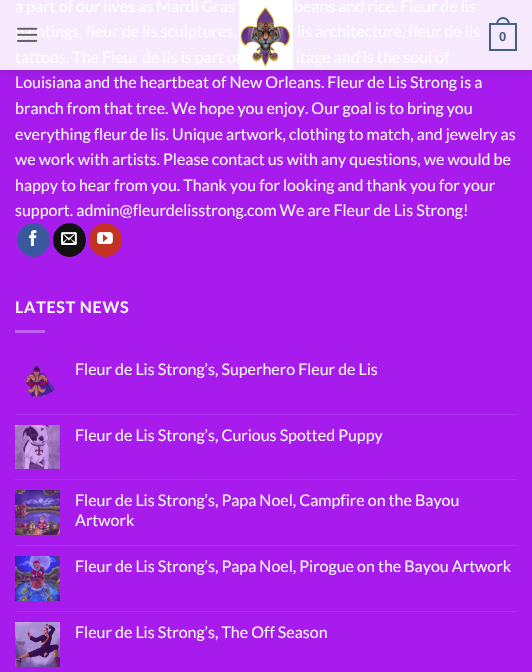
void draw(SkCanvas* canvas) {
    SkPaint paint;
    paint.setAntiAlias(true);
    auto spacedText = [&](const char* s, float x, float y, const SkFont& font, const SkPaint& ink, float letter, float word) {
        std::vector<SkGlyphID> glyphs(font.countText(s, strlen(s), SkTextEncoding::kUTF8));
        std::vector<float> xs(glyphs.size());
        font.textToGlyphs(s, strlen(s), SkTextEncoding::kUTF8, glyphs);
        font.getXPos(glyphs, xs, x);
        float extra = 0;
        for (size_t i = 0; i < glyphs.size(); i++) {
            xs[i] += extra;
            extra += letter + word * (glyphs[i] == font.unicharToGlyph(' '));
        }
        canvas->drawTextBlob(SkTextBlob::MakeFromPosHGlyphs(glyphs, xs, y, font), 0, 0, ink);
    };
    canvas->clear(0xFFA71CED);
    paint.setColor(0xFFF6E8FD);
    canvas->drawRect(SkRect::MakeXYWH(0, 0, 532, 70), paint);
    SkFont font1(fontMgr->matchFamilyStyle("Lato", SkFontStyle::Normal()), 16);
    font1.setSubpixel(true);
    paint.setColor(0xFFFEFEFE);
    canvas->drawString("a part of our lives as Mardi Gras", 15, 12, font1, paint);
    canvas->drawString("beans and rice. Fleur de lis", 294, 12, font1, paint);
    canvas->drawString("paintings, fleur de lis sculptures,", 15, 37, font1, paint);
    canvas->drawString("lis architecture, fleur de lis", 297, 37, font1, paint);
    canvas->drawString("tattoos. The Fleur de lis is part of", 15, 63, font1, paint);
    canvas->drawString("itage and is the soul of", 296, 63, font1, paint);
    paint.setColor(0xFFF1F1F1);
    canvas->drawString("Louisiana and the heartbeat of New Orleans. Fleur de Lis Strong is a", 15, 88, font1, paint);
    canvas->drawString("branch from that tree. We hope you enjoy. Our goal is to bring you", 15, 114, font1, paint);
    canvas->drawString("everything fleur de lis. Unique artwork, clothing to match, and jewelry as", 15, 140, font1, paint);
    canvas->drawString("we work with artists. Please contact us with any questions, we would be", 15, 165, font1, paint);
    canvas->drawString("happy to hear from you. Thank you for looking and thank you for your", 15, 191, font1, paint);
    canvas->drawString("support. admin@fleurdelisstrong.com We are Fleur de Lis Strong!", 15, 216, font1, paint);
    paint.setColor(0xFF3A589D);
    canvas->drawRoundRect(SkRect::MakeXYWH(17.5f, 223.5f, 32, 33), 16, 16, paint);
    paint.setStyle(SkPaint::kStroke_Style);
    paint.setStrokeWidth(1);
    canvas->drawRoundRect(SkRect::MakeXYWH(17.5f, 223.5f, 32, 33), 16, 16, paint);
    canvas->drawImageRect(SkImages::DeferredFromEncodedData(SkData::MakeFromFileName("img1.png")), SkRect::MakeXYWH(28, 230, 9, 16), SkSamplingOptions());
    paint.setStyle(SkPaint::kFill_Style);
    paint.setColor(0xFF111111);
    canvas->drawRoundRect(SkRect::MakeXYWH(53.5f, 223.5f, 32, 33), 16, 16, paint);
    paint.setStyle(SkPaint::kStroke_Style);
    canvas->drawRoundRect(SkRect::MakeXYWH(53.5f, 223.5f, 32, 33), 16, 16, paint);
    canvas->drawImageRect(SkImages::DeferredFromEncodedData(SkData::MakeFromFileName("img2.png")), SkRect::MakeXYWH(61, 232, 16, 13), SkSamplingOptions());
    paint.setStyle(SkPaint::kFill_Style);
    paint.setColor(0xFFC33223);
    canvas->drawRoundRect(SkRect::MakeXYWH(89.5f, 223.5f, 32, 33), 16, 16, paint);
    paint.setStyle(SkPaint::kStroke_Style);
    canvas->drawRoundRect(SkRect::MakeXYWH(89.5f, 223.5f, 32, 33), 16, 16, paint);
    canvas->drawImageRect(SkImages::DeferredFromEncodedData(SkData::MakeFromFileName("img3.png")), SkRect::MakeXYWH(97, 232, 16, 12), SkSamplingOptions());
    SkFont font2(fontMgr->matchFamilyStyle("Lato", SkFontStyle::Bold()), 16);
    font2.setSubpixel(true);
    paint.setStyle(SkPaint::kFill_Style);
    paint.setColor(0xFFF1F1F1);
    spacedText("LATEST NEWS", 15, 313, font2, paint, 0.75f, 0);
    paint.setColor(0xFFC160F2);
    canvas->drawRect(SkRect::MakeXYWH(15, 330, 30, 3), paint);
    canvas->drawImageRect(SkImages::DeferredFromEncodedData(SkData::MakeFromFileName("img4.png")), SkRect::MakeXYWH(25, 365, 30, 33), SkSamplingOptions());
    paint.setColor(0xFFF1F1F1);
    canvas->drawString("Fleur de Lis Strong’s, Superhero Fleur de Lis", 75, 375, font1, paint);
    paint.setColor(0xFFAE2EEE);
    canvas->drawRect(SkRect::MakeXYWH(15, 414, 502, 1), paint);
    canvas->drawImageRect(SkImages::DeferredFromEncodedData(SkData::MakeFromFileName("img5.png")), SkRect::MakeXYWH(15, 425, 45, 44), SkSamplingOptions());
    paint.setColor(0xFFF1F1F1);
    canvas->drawString("Fleur de Lis Strong’s, Curious Spotted Puppy", 75, 441, font1, paint);
    paint.setColor(0xFFAE2EEE);
    canvas->drawRect(SkRect::MakeXYWH(15, 479, 502, 1), paint);
    canvas->drawImageRect(SkImages::DeferredFromEncodedData(SkData::MakeFromFileName("img6.png")), SkRect::MakeXYWH(15, 490, 45, 45), SkSamplingOptions());
    paint.setColor(0xFFF1F1F1);
    canvas->drawString("Fleur de Lis Strong’s, Papa Noel, Campfire on the Bayou", 75, 506, font1, paint);
    canvas->drawString("Artwork", 75, 526, font1, paint);
    paint.setColor(0xFFAE2EEE);
    canvas->drawRect(SkRect::MakeXYWH(15, 545, 502, 1), paint);
    canvas->drawImageRect(SkImages::DeferredFromEncodedData(SkData::MakeFromFileName("img7.png")), SkRect::MakeXYWH(15, 556, 45, 45), SkSamplingOptions());
    paint.setColor(0xFFF1F1F1);
    canvas->drawString("Fleur de Lis Strong’s, Papa Noel, Pirogue on the Bayou Artwork", 75, 572, font1, paint);
    paint.setColor(0xFFAE2EEE);
    canvas->drawRect(SkRect::MakeXYWH(15, 611, 502, 1), paint);
    canvas->drawImageRect(SkImages::DeferredFromEncodedData(SkData::MakeFromFileName("img8.png")), SkRect::MakeXYWH(15, 622, 45, 45), SkSamplingOptions());
    paint.setColor(0xFFF1F1F1);
    canvas->drawString("Fleur de Lis Strong’s, The Off Season", 75, 638, font1, paint);
    canvas->save();
    canvas->clipRect(SkRect::MakeXYWH(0, 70, 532, 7));
    paint.setColor(0x26000000);
    paint.setMaskFilter(SkMaskFilter::MakeBlur(kNormal_SkBlurStyle, 5));
    canvas->drawRect(SkRect::MakeXYWH(1, 1, 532, 70), paint);
    paint.setMaskFilter(nullptr);
    canvas->restore();
    canvas->drawImageRect(SkImages::DeferredFromEncodedData(SkData::MakeFromFileName("img9.png")), SkRect::MakeXYWH(17, 27, 21, 15), SkSamplingOptions());
    canvas->drawImageRect(SkImages::DeferredFromEncodedData(SkData::MakeFromFileName("img10.png")), SkRect::MakeXYWH(239, 0, 54, 70), SkSamplingOptions());
    paint.setStyle(SkPaint::kStroke_Style);
    paint.setStrokeWidth(2);
    paint.setColor(0xFF446084);
    canvas->drawRect(SkRect::MakeXYWH(490, 24, 26, 26), paint);
    paint.setStyle(SkPaint::kFill_Style);
    canvas->drawPath(SkPathBuilder(SkPathFillType::kEvenOdd).moveTo(503, 17).cubicTo(507.5f, 17, 510, 21, 510, 25).lineTo(496, 25).cubicTo(496, 21, 498.5f, 17, 503, 17).close().moveTo(503, 19).cubicTo(506.5f, 19, 508, 22, 508, 25).lineTo(498, 25).cubicTo(498, 22, 499.5f, 19, 503, 19).close().detach(), paint);
    SkFont font3(fontMgr->matchFamilyStyle("Liberation Sans", SkFontStyle::Bold()), 13);
    font3.setSubpixel(true);
    canvas->drawString("0", 499, 41, font3, paint);
    paint.setColor(0xFF921FCB);
    canvas->drawRect(SkRect::MakeXYWH(15, 70, 502, 1), paint);
}
